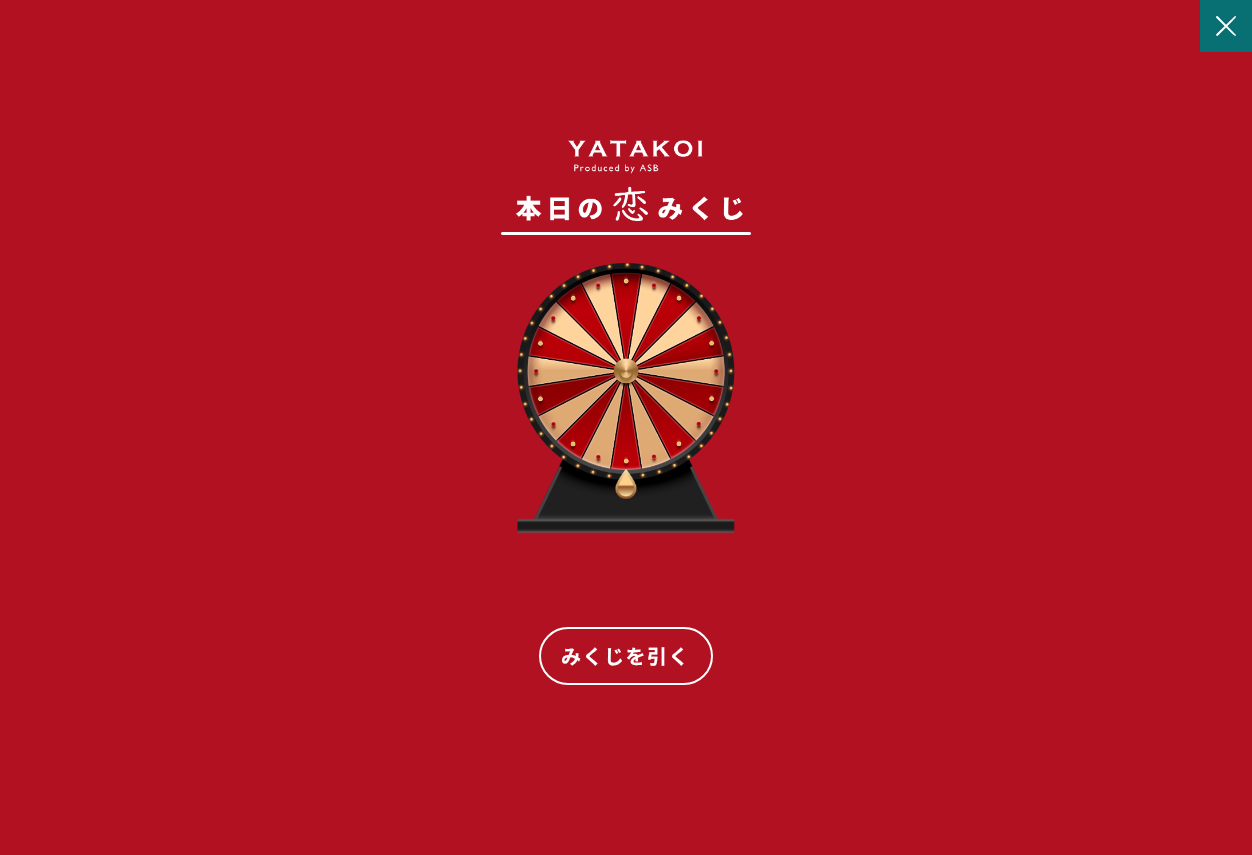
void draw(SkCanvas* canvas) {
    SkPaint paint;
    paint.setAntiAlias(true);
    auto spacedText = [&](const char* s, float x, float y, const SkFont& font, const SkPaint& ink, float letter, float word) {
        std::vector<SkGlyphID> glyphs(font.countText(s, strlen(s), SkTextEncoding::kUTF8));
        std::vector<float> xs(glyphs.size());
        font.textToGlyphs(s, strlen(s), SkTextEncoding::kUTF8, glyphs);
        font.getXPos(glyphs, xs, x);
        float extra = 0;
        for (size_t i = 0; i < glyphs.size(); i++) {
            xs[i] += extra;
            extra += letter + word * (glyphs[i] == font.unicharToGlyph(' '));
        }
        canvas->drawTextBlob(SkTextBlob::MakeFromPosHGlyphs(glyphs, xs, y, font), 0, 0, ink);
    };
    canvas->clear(0xFFB21122);
    paint.setColor(0xFF086F72);
    canvas->drawRect(SkRect::MakeXYWH(1200, 0, 52, 52), paint);
    paint.setColor(0xFFFFFFFF);
    canvas->drawPath(SkPathBuilder().moveTo(1218, 16.5f).lineTo(1235.5f, 34.5f).lineTo(1236, 35).cubicTo(1235.5f, 37.5f, 1233.5f, 34.5f, 1231, 32.5f).lineTo(1216, 17.5f).cubicTo(1216, 16.5f, 1217, 15.5f, 1218, 16.5f).close().detach(), paint);
    canvas->drawPath(SkPathBuilder().moveTo(1216.5f, 34).lineTo(1234.5f, 16.5f).lineTo(1235, 16).cubicTo(1237.5f, 16.5f, 1234.5f, 18.5f, 1232.5f, 21).lineTo(1217.5f, 36).cubicTo(1216.5f, 36, 1215.5f, 35, 1216.5f, 34).close().detach(), paint);
    canvas->drawImageRect(SkImages::DeferredFromEncodedData(SkData::MakeFromFileName("img1.png")), SkRect::MakeXYWH(501, 140, 250, 95), SkSamplingOptions());
    canvas->drawImageRect(SkImages::DeferredFromEncodedData(SkData::MakeFromFileName("img4.png")), SkRect::MakeXYWH(517, 459, 218, 74), SkSamplingOptions());
    canvas->drawImageRect(SkImages::DeferredFromEncodedData(SkData::MakeFromFileName("img2.png")), SkRect::MakeXYWH(517, 263, 218, 217), SkSamplingOptions());
    canvas->drawImageRect(SkImages::DeferredFromEncodedData(SkData::MakeFromFileName("img3.png")), SkRect::MakeXYWH(615, 469, 22, 30), SkSamplingOptions());
    paint.setStyle(SkPaint::kStroke_Style);
    paint.setStrokeWidth(2);
    canvas->drawRoundRect(SkRect::MakeXYWH(540, 628, 172, 56), 28, 28, paint);
    SkFont font1(fontMgr->matchFamilyStyle("Noto Sans JP", SkFontStyle::Bold()), 20);
    font1.setSubpixel(true);
    paint.setStyle(SkPaint::kFill_Style);
    spacedText("みくじを引く", 561, 664, font1, paint, 1.5f, 0);
}
